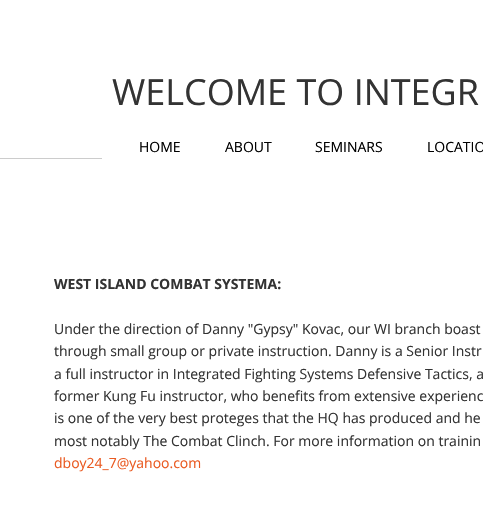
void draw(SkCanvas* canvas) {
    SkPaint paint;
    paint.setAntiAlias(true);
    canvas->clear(0xFFFFFFFF);
    SkFont font1(fontMgr->matchFamilyStyle("Open Sans", SkFontStyle::Normal()), 36);
    font1.setSubpixel(true);
    paint.setColor(0xFF333333);
    canvas->drawString("WELCOME TO INTEGR", 112, 105, font1, paint);
    SkFont font2(fontMgr->matchFamilyStyle("Open Sans", SkFontStyle::Normal()), 14);
    font2.setSubpixel(true);
    paint.setColor(0xFF000000);
    canvas->drawString("HOME", 139, 152, font2, paint);
    paint.setColor(0xFFCCCCCC);
    canvas->drawRect(SkRect::MakeXYWH(0, 158, 102, 1), paint);
    paint.setColor(0xFF000000);
    canvas->drawString("ABOUT", 225, 152, font2, paint);
    canvas->drawString("SEMINARS", 315, 152, font2, paint);
    canvas->drawString("LOCATIO", 427, 152, font2, paint);
    SkFont font3(fontMgr->matchFamilyStyle("Open Sans", SkFontStyle::Bold()), 14);
    font3.setSubpixel(true);
    paint.setColor(0xFF333333);
    canvas->drawString("WEST ISLAND COMBAT SYSTEMA:", 54, 289, font3, paint);
    canvas->drawString("Under the direction of Danny \"Gypsy\" Kovac, our WI branch boast", 54, 334, font2, paint);
    canvas->drawString("through small group or private instruction. Danny is a Senior Instr", 54, 356, font2, paint);
    canvas->drawString("a full instructor in Integrated Fighting Systems Defensive Tactics, a", 54, 379, font2, paint);
    canvas->drawString("former Kung Fu instructor, who benefits from extensive experienc", 54, 401, font2, paint);
    canvas->drawString("is one of the very best proteges that the HQ has produced and he", 54, 423, font2, paint);
    canvas->drawString("most notably The Combat Clinch. For more information on trainin", 54, 446, font2, paint);
    paint.setColor(0xFFEA5A21);
    canvas->drawString("dboy24_7@yahoo.com", 54, 468, font2, paint);
}
